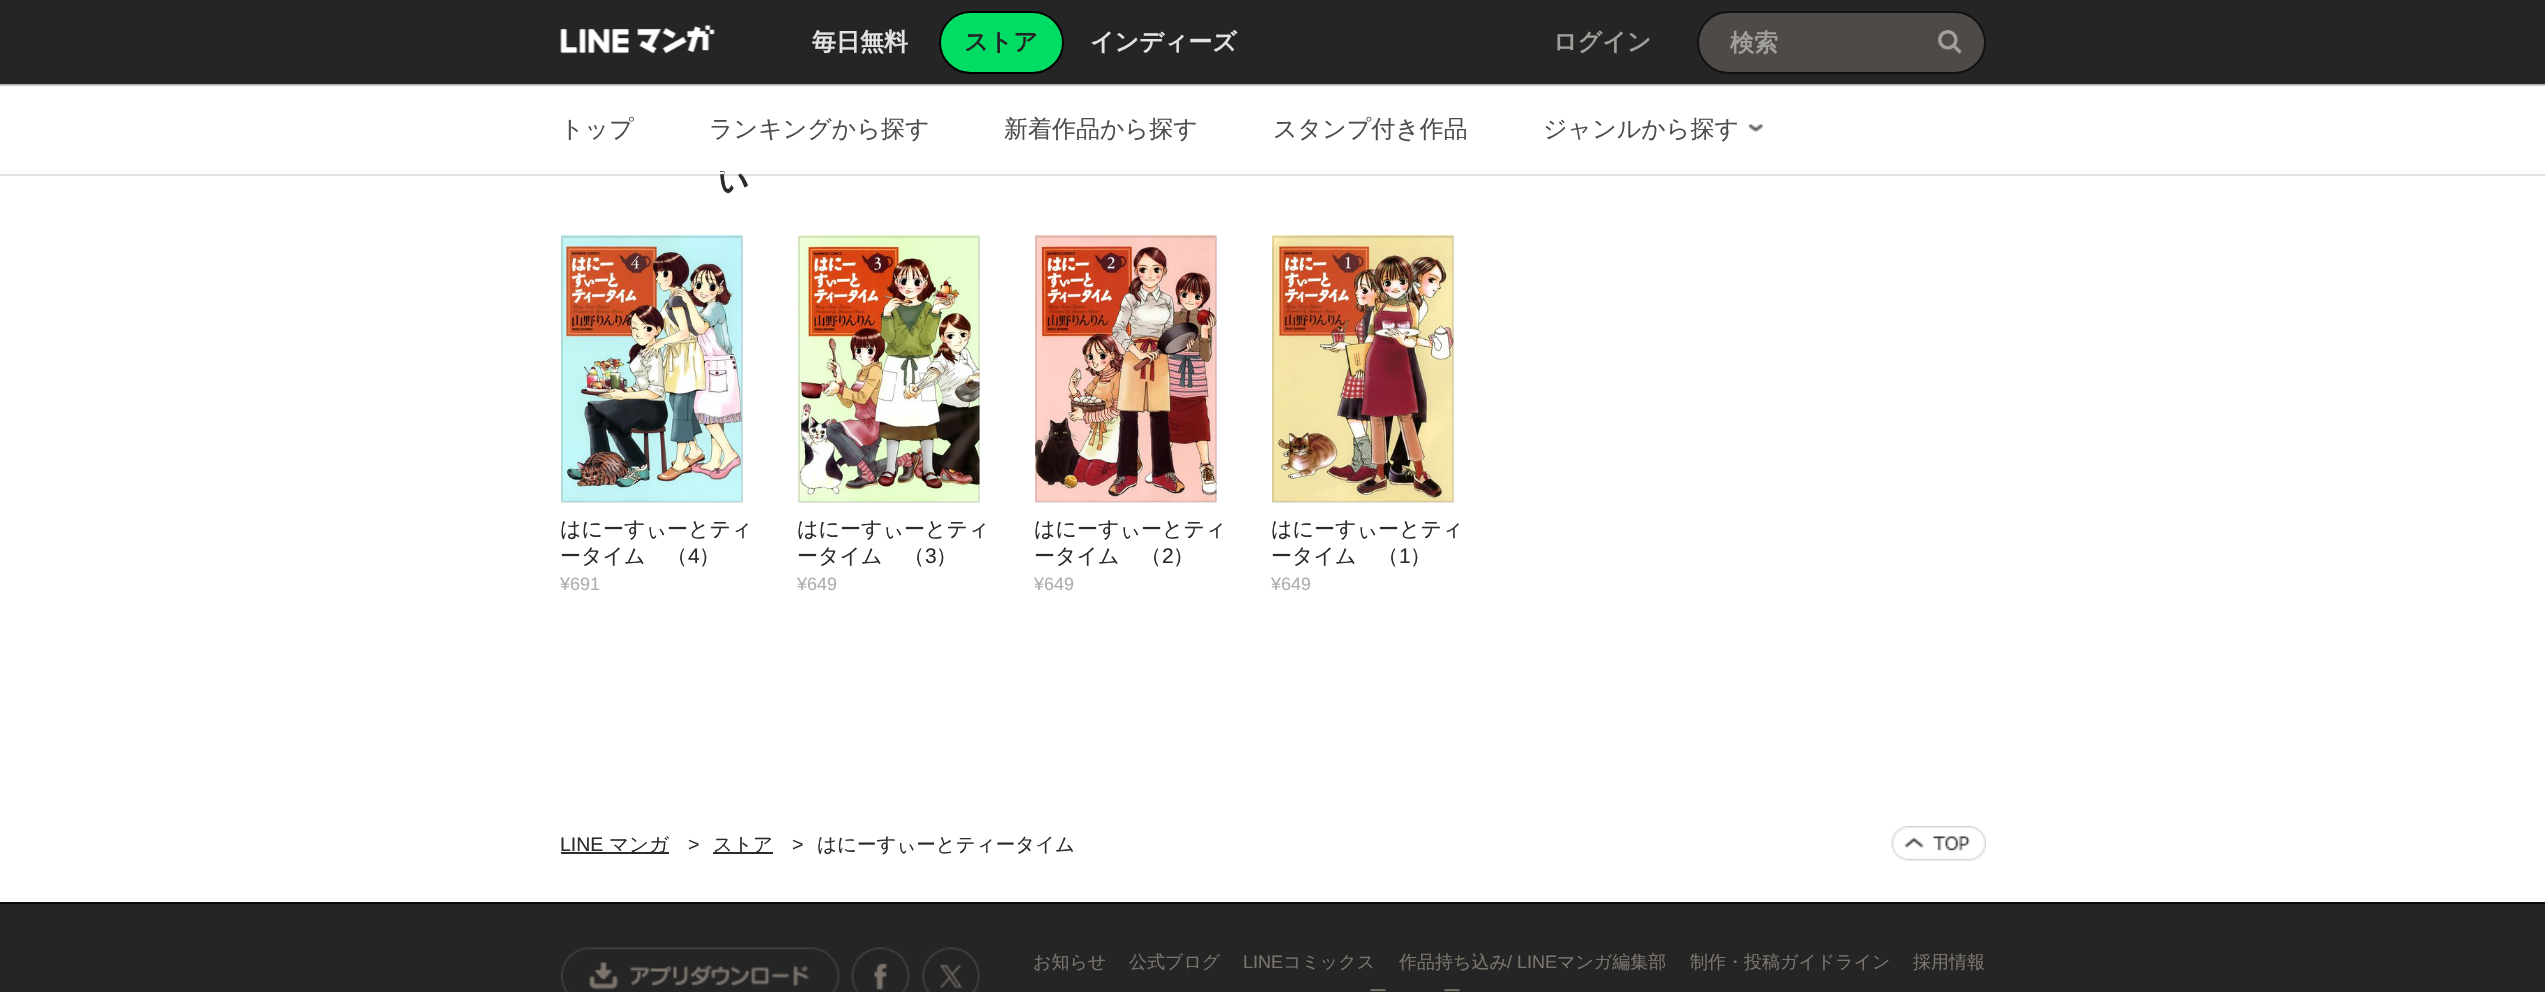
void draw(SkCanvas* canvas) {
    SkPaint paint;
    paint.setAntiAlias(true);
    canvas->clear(0xFFFFFFFF);
    paint.setColor(0xFF262525);
    canvas->drawRect(SkRect::MakeXYWH(0, 0, 2545, 84), paint);
    canvas->drawImageRect(SkImages::DeferredFromEncodedData(SkData::MakeFromFileName("img1.png")), SkRect::MakeXYWH(560, 25, 155, 29), SkSamplingOptions());
    SkFont font1(fontMgr->matchFamilyStyle("WenQuanYi Zen Hei", SkFontStyle::Bold()), 24);
    font1.setSubpixel(true);
    paint.setColor(0xFFE3E3E3);
    canvas->drawString("毎日無料", 812, 50, font1, paint);
    paint.setColor(0xFF00DC64);
    canvas->drawRoundRect(SkRect::MakeXYWH(940, 12, 123, 61), 30.5f, 30.5f, paint);
    paint.setStyle(SkPaint::kStroke_Style);
    paint.setStrokeWidth(2);
    paint.setColor(0xFF000000);
    canvas->drawRoundRect(SkRect::MakeXYWH(940, 12, 123, 61), 30.5f, 30.5f, paint);
    paint.setStyle(SkPaint::kFill_Style);
    paint.setColor(0xFF262525);
    canvas->drawString("ストア", 964, 50, font1, paint);
    paint.setColor(0xFFE3E3E3);
    canvas->drawString("インディーズ", 1090, 50, font1, paint);
    paint.setColor(0xFFA19F9A);
    canvas->drawString("ログイン", 1553, 50, font1, paint);
    paint.setColor(0xFF4D4A48);
    canvas->drawRoundRect(SkRect::MakeXYWH(1698, 12, 287, 61), 30.5f, 30.5f, paint);
    paint.setStyle(SkPaint::kStroke_Style);
    paint.setColor(0xFF121111);
    canvas->drawRoundRect(SkRect::MakeXYWH(1698, 12, 287, 61), 30.5f, 30.5f, paint);
    paint.setStyle(SkPaint::kFill_Style);
    paint.setColor(0xFFA19F9A);
    canvas->drawString("検索", 1730, 51, font1, paint);
    canvas->drawImageRect(SkImages::DeferredFromEncodedData(SkData::MakeFromFileName("img2.png")), SkRect::MakeXYWH(1938, 30, 24, 24), SkSamplingOptions());
    SkFont font2(fontMgr->matchFamilyStyle("WenQuanYi Zen Hei", SkFontStyle::Bold()), 38);
    font2.setSubpixel(true);
    paint.setColor(0xFF2B2B2A);
    canvas->drawString("ぃ", 713, 188, font2, paint);
    paint.setColor(0xFFFFFFFF);
    canvas->drawRect(SkRect::MakeXYWH(719, 172, 5, 2), paint);
    paint.setColor(0xFFCCCCCC);
    canvas->drawRect(SkRect::MakeXYWH(0, 85, 2545, 1), paint);
    paint.setColor(0xFFB5B4B4);
    canvas->drawRect(SkRect::MakeXYWH(0, 84, 2545, 1), paint);
    SkFont font3(fontMgr->matchFamilyStyle("WenQuanYi Zen Hei", SkFontStyle(500, SkFontStyle::kNormal_Width, SkFontStyle::kUpright_Slant)), 24);
    font3.setSubpixel(true);
    paint.setColor(0xFF4D4D4D);
    canvas->drawString("トップ", 560, 137, font3, paint);
    canvas->drawString("ランキングから探す", 709, 137, font3, paint);
    canvas->drawString("新着作品から探す", 1004, 137, font3, paint);
    canvas->drawString("スタンプ付き作品", 1273, 137, font3, paint);
    canvas->drawString("ジャンルから探す", 1543, 137, font3, paint);
    canvas->drawImageRect(SkImages::DeferredFromEncodedData(SkData::MakeFromFileName("img3.png")), SkRect::MakeXYWH(1748, 124, 15, 8), SkSamplingOptions());
    paint.setColor(0x336F6B6B);
    canvas->drawRect(SkRect::MakeXYWH(0, 174, 2545, 2), paint);
    canvas->drawImageRect(SkImages::DeferredFromEncodedData(SkData::MakeFromFileName("img4.png")), SkRect::MakeXYWH(561, 235, 182, 267), SkSamplingOptions());
    paint.setStyle(SkPaint::kStroke_Style);
    paint.setColor(0x1A000000);
    canvas->drawRect(SkRect::MakeXYWH(562, 237, 180, 265), paint);
    SkFont font4(fontMgr->matchFamilyStyle("WenQuanYi Zen Hei", SkFontStyle(500, SkFontStyle::kNormal_Width, SkFontStyle::kUpright_Slant)), 21);
    font4.setSubpixel(true);
    paint.setStyle(SkPaint::kFill_Style);
    paint.setColor(0xFF2B2B2A);
    canvas->drawString("はにーすぃーとティ", 560, 536, font4, paint);
    canvas->drawString("ータイム　（", 560, 563, font4, paint);
    SkFont font5(fontMgr->matchFamilyStyle("Liberation Sans", SkFontStyle::Normal()), 21);
    font5.setSubpixel(true);
    canvas->drawString("4", 688, 563, font5, paint);
    canvas->drawString("）", 699, 563, font4, paint);
    SkFont font6(fontMgr->matchFamilyStyle("Liberation Sans", SkFontStyle::Normal()), 18);
    font6.setSubpixel(true);
    paint.setColor(0xFFACADAE);
    canvas->drawString("¥691", 560, 590, font6, paint);
    canvas->drawImageRect(SkImages::DeferredFromEncodedData(SkData::MakeFromFileName("img5.png")), SkRect::MakeXYWH(798, 235, 182, 267), SkSamplingOptions());
    paint.setStyle(SkPaint::kStroke_Style);
    paint.setColor(0x1A000000);
    canvas->drawRect(SkRect::MakeXYWH(799, 237, 180, 265), paint);
    paint.setStyle(SkPaint::kFill_Style);
    paint.setColor(0xFF2B2B2A);
    canvas->drawString("はにーすぃーとティ", 797, 536, font4, paint);
    canvas->drawString("ータイム　（", 797, 563, font4, paint);
    canvas->drawString("3", 925, 563, font5, paint);
    canvas->drawString("）", 936, 563, font4, paint);
    paint.setColor(0xFFACADAE);
    canvas->drawString("¥649", 797, 590, font6, paint);
    canvas->drawImageRect(SkImages::DeferredFromEncodedData(SkData::MakeFromFileName("img6.png")), SkRect::MakeXYWH(1035, 235, 182, 267), SkSamplingOptions());
    paint.setStyle(SkPaint::kStroke_Style);
    paint.setColor(0x1A000000);
    canvas->drawRect(SkRect::MakeXYWH(1036, 237, 180, 265), paint);
    paint.setStyle(SkPaint::kFill_Style);
    paint.setColor(0xFF2B2B2A);
    canvas->drawString("はにーすぃーとティ", 1034, 536, font4, paint);
    canvas->drawString("ータイム　（", 1034, 563, font4, paint);
    canvas->drawString("2", 1162, 563, font5, paint);
    canvas->drawString("）", 1173, 563, font4, paint);
    paint.setColor(0xFFACADAE);
    canvas->drawString("¥649", 1034, 590, font6, paint);
    canvas->drawImageRect(SkImages::DeferredFromEncodedData(SkData::MakeFromFileName("img7.png")), SkRect::MakeXYWH(1272, 235, 182, 267), SkSamplingOptions());
    paint.setStyle(SkPaint::kStroke_Style);
    paint.setColor(0x1A000000);
    canvas->drawRect(SkRect::MakeXYWH(1273, 237, 180, 265), paint);
    paint.setStyle(SkPaint::kFill_Style);
    paint.setColor(0xFF2B2B2A);
    canvas->drawString("はにーすぃーとティ", 1271, 536, font4, paint);
    canvas->drawString("ータイム　（", 1271, 563, font4, paint);
    canvas->drawString("1", 1399, 563, font5, paint);
    canvas->drawString("）", 1410, 563, font4, paint);
    paint.setColor(0xFFACADAE);
    canvas->drawString("¥649", 1271, 590, font6, paint);
    SkFont font7(fontMgr->matchFamilyStyle("Liberation Sans", SkFontStyle::Normal()), 19.5f);
    font7.setSubpixel(true);
    paint.setColor(0xFF2B2B2A);
    canvas->drawString("LINE", 560, 851, font7, paint);
    canvas->drawRect(SkRect::MakeXYWH(561, 852, 108, 2), paint);
    SkFont font8(fontMgr->matchFamilyStyle("WenQuanYi Zen Hei", SkFontStyle(500, SkFontStyle::kNormal_Width, SkFontStyle::kUpright_Slant)), 19.5f);
    font8.setSubpixel(true);
    canvas->drawString("マンガ", 609, 851, font8, paint);
    canvas->drawString(">", 688, 851, font7, paint);
    canvas->drawRect(SkRect::MakeXYWH(713, 852, 60, 2), paint);
    canvas->drawString("ストア", 713, 851, font8, paint);
    canvas->drawString(">", 792, 851, font7, paint);
    canvas->drawString("はにーすぃーとティータイム", 817, 851, font8, paint);
    canvas->drawImageRect(SkImages::DeferredFromEncodedData(SkData::MakeFromFileName("img8.png")), SkRect::MakeXYWH(1891, 826, 95, 35), SkSamplingOptions());
    paint.setColor(0xFF262525);
    canvas->drawRect(SkRect::MakeXYWH(0, 904, 2545, 88), paint);
    paint.setColor(0xFF0B0A0A);
    canvas->drawRect(SkRect::MakeXYWH(0, 902, 2545, 2), paint);
    canvas->drawImageRect(SkImages::DeferredFromEncodedData(SkData::MakeFromFileName("img9.png")), SkRect::MakeXYWH(561, 947, 279, 45), SkSamplingOptions());
    canvas->drawImageRect(SkImages::DeferredFromEncodedData(SkData::MakeFromFileName("img10.png")), SkRect::MakeXYWH(850, 947, 60, 45), SkSamplingOptions());
    canvas->drawImageRect(SkImages::DeferredFromEncodedData(SkData::MakeFromFileName("img11.png")), SkRect::MakeXYWH(922, 947, 58, 45), SkSamplingOptions());
    SkFont font9(fontMgr->matchFamilyStyle("WenQuanYi Zen Hei", SkFontStyle(500, SkFontStyle::kNormal_Width, SkFontStyle::kUpright_Slant)), 18);
    font9.setSubpixel(true);
    paint.setColor(0xFF7A746C);
    canvas->drawString("お知らせ", 1033, 968, font9, paint);
    canvas->drawString("公式ブログ", 1129, 968, font9, paint);
    canvas->drawString("LINE", 1243, 968, font6, paint);
    canvas->drawString("コミックス", 1283, 968, font9, paint);
    canvas->drawString("作品持ち込み", 1399, 968, font9, paint);
    canvas->drawString("/ LINE", 1507, 968, font6, paint);
    canvas->drawString("マンガ編集部", 1557, 968, font9, paint);
    canvas->drawString("制作・投稿ガイドライン", 1690, 968, font9, paint);
    canvas->drawString("採用情報", 1913, 968, font9, paint);
    canvas->drawString("ー", 1369, 997, font9, paint);
    canvas->drawString("ー", 1443, 997, font9, paint);
}
